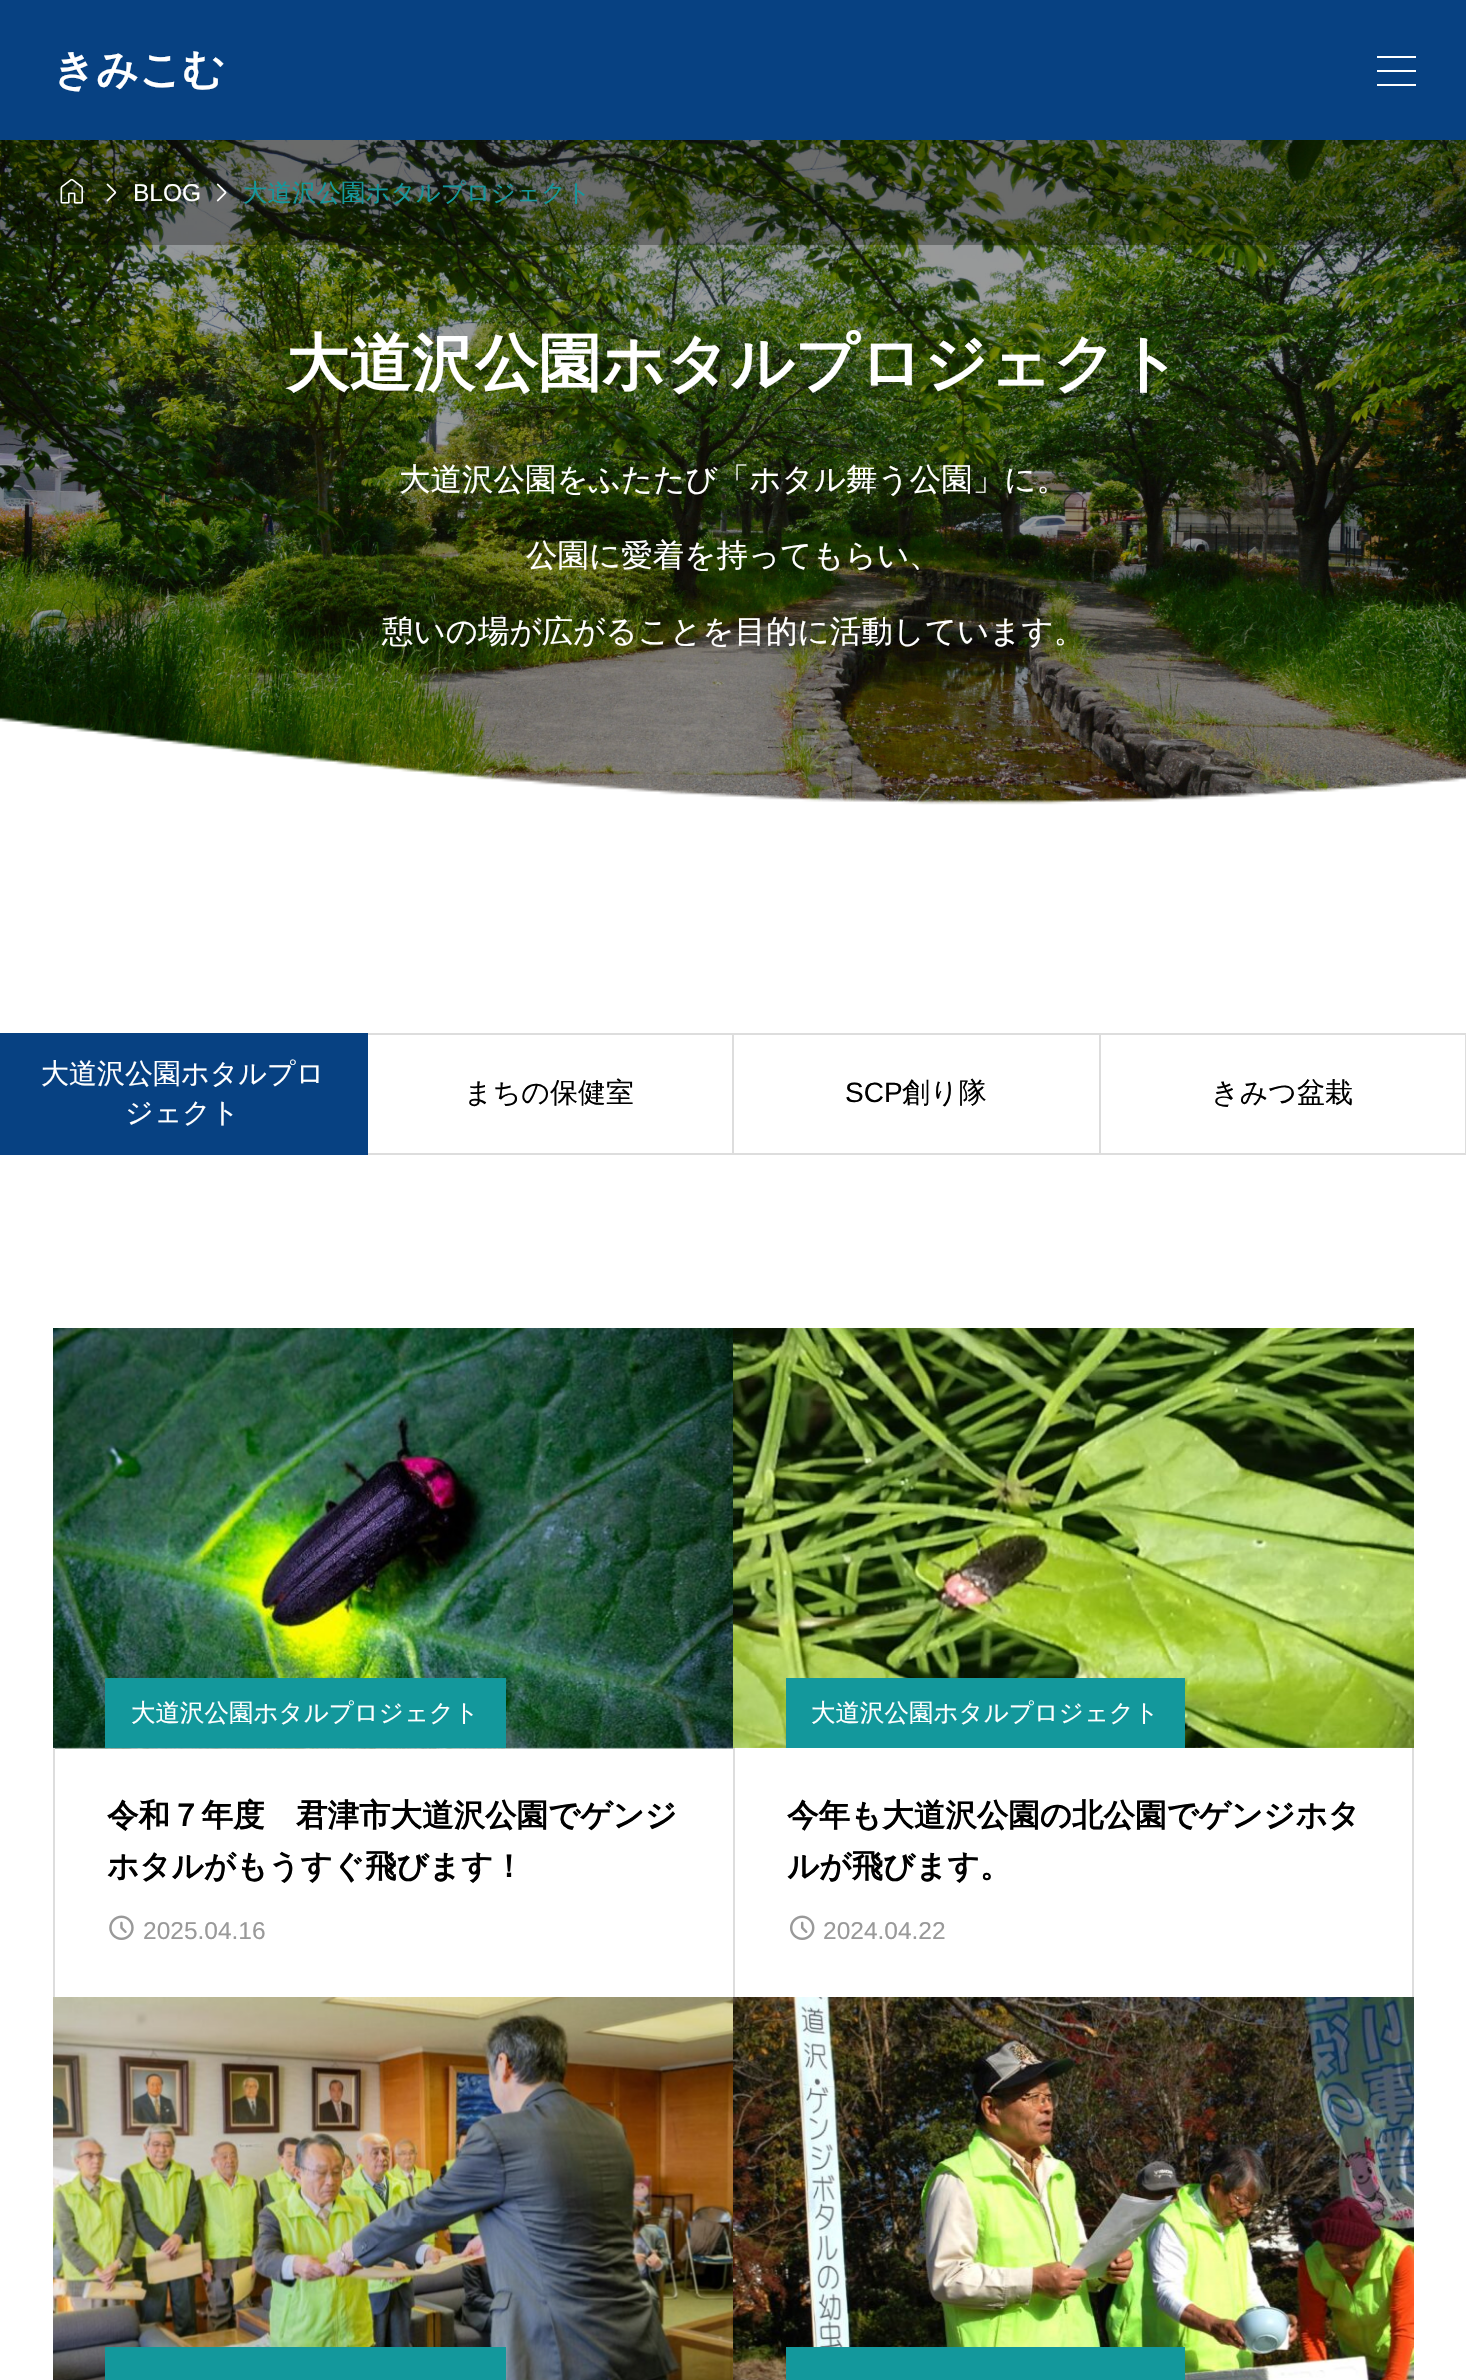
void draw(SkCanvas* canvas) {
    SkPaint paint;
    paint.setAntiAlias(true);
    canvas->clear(0xFFFFFFFF);
    paint.setColor(0xFF074182);
    canvas->drawRect(SkRect::MakeXYWH(0, 0, 1466, 140), paint);
    SkFont font1(fontMgr->matchFamilyStyle("WenQuanYi Zen Hei", SkFontStyle::Bold()), 42);
    font1.setSubpixel(true);
    paint.setColor(0xFFFFFFFF);
    canvas->drawString("きみこむ", 53, 84, font1, paint);
    canvas->drawRect(SkRect::MakeXYWH(1377, 56, 39, 2), paint);
    canvas->drawRect(SkRect::MakeXYWH(1377, 70, 39, 2), paint);
    canvas->drawRect(SkRect::MakeXYWH(1377, 84, 39, 2), paint);
    canvas->drawImageRect(SkImages::DeferredFromEncodedData(SkData::MakeFromFileName("img4.png")), SkRect::MakeXYWH(0, 140, 1466, 665), SkSamplingOptions());
    paint.setColor(0x4D000000);
    canvas->drawRect(SkRect::MakeXYWH(0, 140, 1466, 105), paint);
    canvas->drawImageRect(SkImages::DeferredFromEncodedData(SkData::MakeFromFileName("img1.png")), SkRect::MakeXYWH(60, 178, 23, 26), SkSamplingOptions());
    canvas->drawImageRect(SkImages::DeferredFromEncodedData(SkData::MakeFromFileName("img2.png")), SkRect::MakeXYWH(106, 183, 11, 19), SkSamplingOptions());
    SkFont font2(fontMgr->matchFamilyStyle("Liberation Sans", SkFontStyle::Normal()), 24.5f);
    font2.setSubpixel(true);
    paint.setColor(0xFFFFFFFF);
    canvas->drawString("BLOG", 133, 201, font2, paint);
    canvas->drawImageRect(SkImages::DeferredFromEncodedData(SkData::MakeFromFileName("img3.png")), SkRect::MakeXYWH(216, 183, 11, 19), SkSamplingOptions());
    SkFont font3(fontMgr->matchFamilyStyle("WenQuanYi Zen Hei", SkFontStyle(500, SkFontStyle::kNormal_Width, SkFontStyle::kUpright_Slant)), 24.5f);
    font3.setSubpixel(true);
    paint.setColor(0xFF13989C);
    canvas->drawString("大道沢公園ホタルプロジェクト", 243, 201, font3, paint);
    SkFont font4(fontMgr->matchFamilyStyle("WenQuanYi Zen Hei", SkFontStyle::Bold()), 63);
    font4.setSubpixel(true);
    paint.setColor(0xFFFFFFFF);
    canvas->drawString("大道沢公園ホタルプロジェクト", 286, 385, font4, paint);
    SkFont font5(fontMgr->matchFamilyStyle("WenQuanYi Zen Hei", SkFontStyle(500, SkFontStyle::kNormal_Width, SkFontStyle::kUpright_Slant)), 31.5f);
    font5.setSubpixel(true);
    canvas->drawString("大道沢公園をふたたび「ホタル舞う公園」に。", 399, 490, font5, paint);
    canvas->drawString("公園に愛着を持ってもらい、", 526, 566, font5, paint);
    canvas->drawString("憩いの場が広がることを目的に活動しています。", 382, 642, font5, paint);
    canvas->drawImageRect(SkImages::DeferredFromEncodedData(SkData::MakeFromFileName("img5.png")), SkRect::MakeXYWH(0, 717, 1466, 123), SkSamplingOptions());
    paint.setColor(0xFF074182);
    canvas->drawRect(SkRect::MakeXYWH(0, 1033, 368, 122), paint);
    SkFont font6(fontMgr->matchFamilyStyle("WenQuanYi Zen Hei", SkFontStyle(500, SkFontStyle::kNormal_Width, SkFontStyle::kUpright_Slant)), 28);
    font6.setSubpixel(true);
    paint.setColor(0xFFFFFFFF);
    canvas->drawString("大道沢公園ホタルプロ", 41, 1083, font6, paint);
    canvas->drawString("ジェクト", 125, 1122, font6, paint);
    paint.setColor(0xFFDDDDDD);
    canvas->drawRect(SkRect::MakeXYWH(368, 1033, 365, 2), paint);
    canvas->drawRect(SkRect::MakeXYWH(732, 1033, 2, 122), paint);
    canvas->drawRect(SkRect::MakeXYWH(368, 1153, 365, 2), paint);
    paint.setColor(0xFF000000);
    canvas->drawString("まちの保健室", 464, 1102, font6, paint);
    paint.setColor(0xFFDDDDDD);
    canvas->drawRect(SkRect::MakeXYWH(733, 1033, 733, 2), paint);
    canvas->drawRect(SkRect::MakeXYWH(1099, 1033, 2, 122), paint);
    canvas->drawRect(SkRect::MakeXYWH(733, 1153, 368, 2), paint);
    SkFont font7(fontMgr->matchFamilyStyle("Liberation Sans", SkFontStyle::Normal()), 28);
    font7.setSubpixel(true);
    paint.setColor(0xFF000000);
    canvas->drawString("SCP", 845, 1102, font7, paint);
    canvas->drawString("創り隊", 902, 1102, font6, paint);
    paint.setColor(0xFFDDDDDD);
    canvas->drawRect(SkRect::MakeXYWH(1465, 1033, 1, 122), paint);
    canvas->drawRect(SkRect::MakeXYWH(1101, 1153, 365, 2), paint);
    paint.setColor(0xFF000000);
    canvas->drawString("きみつ盆栽", 1211, 1102, font6, paint);
    canvas->drawImageRect(SkImages::DeferredFromEncodedData(SkData::MakeFromFileName("img6.png")), SkRect::MakeXYWH(53, 1328, 682, 421), SkSamplingOptions());
    paint.setColor(0xFF13989C);
    canvas->drawRect(SkRect::MakeXYWH(105, 1678, 401, 70), paint);
    paint.setColor(0xFFFFFFFF);
    canvas->drawString("大道沢公園ホタルプロジェクト", 131, 1721, font3, paint);
    paint.setColor(0xFFDDDDDD);
    canvas->drawRect(SkRect::MakeXYWH(733, 1748, 2, 251), paint);
    canvas->drawRect(SkRect::MakeXYWH(53, 1748, 2, 251), paint);
    SkFont font8(fontMgr->matchFamilyStyle("WenQuanYi Zen Hei", SkFontStyle::Bold()), 31.5f);
    font8.setSubpixel(true);
    paint.setColor(0xFF000000);
    canvas->drawString("令和７年度　君津市大道沢公園でゲンジ", 107, 1826, font8, paint);
    canvas->drawString("ホタルがもうすぐ飛びます！", 107, 1877, font8, paint);
    canvas->drawImageRect(SkImages::DeferredFromEncodedData(SkData::MakeFromFileName("img7.png")), SkRect::MakeXYWH(109, 1915, 25, 25), SkSamplingOptions());
    paint.setColor(0xFF999999);
    canvas->drawString("2025.04.16", 143, 1939, font2, paint);
    canvas->drawImageRect(SkImages::DeferredFromEncodedData(SkData::MakeFromFileName("img8.png")), SkRect::MakeXYWH(733, 1328, 681, 420), SkSamplingOptions());
    paint.setColor(0xFF13989C);
    canvas->drawRect(SkRect::MakeXYWH(786, 1678, 399, 70), paint);
    paint.setColor(0xFFFFFFFF);
    canvas->drawString("大道沢公園ホタルプロジェクト", 811, 1721, font3, paint);
    paint.setColor(0xFFDDDDDD);
    canvas->drawRect(SkRect::MakeXYWH(1412, 1748, 2, 251), paint);
    paint.setColor(0xFF000000);
    canvas->drawString("今年も大道沢公園の北公園でゲンジホタ", 787, 1826, font8, paint);
    canvas->drawString("ルが飛びます。", 787, 1877, font8, paint);
    canvas->drawImageRect(SkImages::DeferredFromEncodedData(SkData::MakeFromFileName("img9.png")), SkRect::MakeXYWH(790, 1915, 25, 25), SkSamplingOptions());
    paint.setColor(0xFF999999);
    canvas->drawString("2024.04.22", 823, 1939, font2, paint);
    canvas->drawImageRect(SkImages::DeferredFromEncodedData(SkData::MakeFromFileName("img10.png")), SkRect::MakeXYWH(53, 1997, 680, 383), SkSamplingOptions());
    paint.setColor(0xFF13989C);
    canvas->drawRect(SkRect::MakeXYWH(105, 2347, 401, 33), paint);
    canvas->drawImageRect(SkImages::DeferredFromEncodedData(SkData::MakeFromFileName("img11.png")), SkRect::MakeXYWH(733, 1997, 681, 383), SkSamplingOptions());
    canvas->drawRect(SkRect::MakeXYWH(786, 2347, 399, 33), paint);
}
